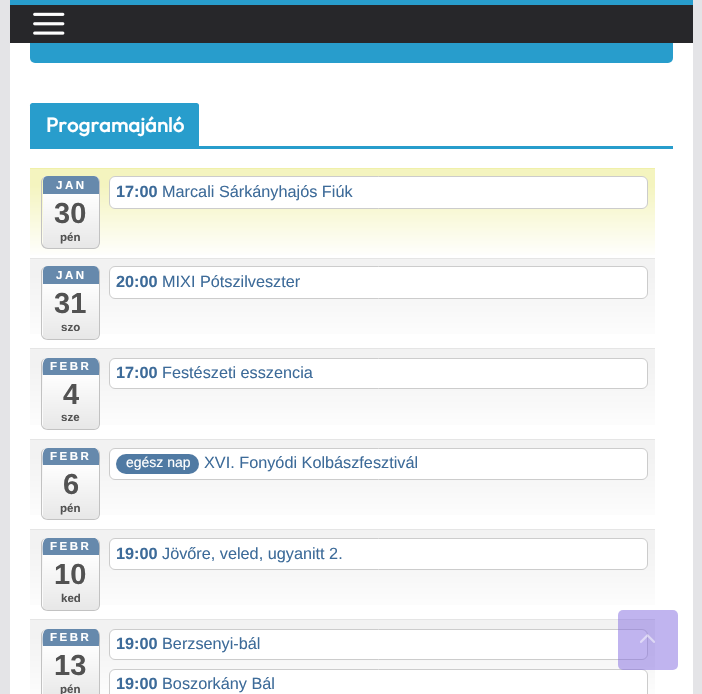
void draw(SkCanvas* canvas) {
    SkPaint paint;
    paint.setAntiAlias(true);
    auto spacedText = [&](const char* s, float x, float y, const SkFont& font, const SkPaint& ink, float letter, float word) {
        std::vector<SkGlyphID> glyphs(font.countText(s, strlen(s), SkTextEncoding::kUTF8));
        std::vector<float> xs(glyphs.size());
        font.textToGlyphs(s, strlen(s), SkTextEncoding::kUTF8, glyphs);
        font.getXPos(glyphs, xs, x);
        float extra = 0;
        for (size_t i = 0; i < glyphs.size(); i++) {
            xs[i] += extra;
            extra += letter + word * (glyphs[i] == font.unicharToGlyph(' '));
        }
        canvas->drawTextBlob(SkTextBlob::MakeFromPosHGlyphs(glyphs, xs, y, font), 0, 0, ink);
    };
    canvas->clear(0xFFE4E4E7);
    paint.setColor(0xFFFFFFFF);
    canvas->drawRect(SkRect::MakeXYWH(10, 43, 683, 651), paint);
    paint.setColor(0xFF289DCC);
    canvas->drawRoundRect(SkRect::MakeXYWH(30, -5, 643, 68), 5, 5, paint);
    paint.setColor(0xFF27272A);
    canvas->drawRect(SkRect::MakeXYWH(10, 5, 683, 38), paint);
    paint.setColor(0xFF289DCC);
    canvas->drawRect(SkRect::MakeXYWH(10, 0, 683, 5), paint);
    canvas->drawImageRect(SkImages::DeferredFromEncodedData(SkData::MakeFromFileName("img1.png")), SkRect::MakeXYWH(33, 12, 32, 23), SkSamplingOptions());
    canvas->drawRect(SkRect::MakeXYWH(30, 146, 643, 3), paint);
    canvas->drawPath(SkPathBuilder().moveTo(32.5f, 103).lineTo(196.5f, 103).cubicTo(198, 103, 199, 104, 199, 105.5f).lineTo(199, 146).lineTo(30, 146).lineTo(30, 105.5f).cubicTo(30, 104, 31, 103, 32.5f, 103).close().detach(), paint);
    SkFont font1(fontMgr->matchFamilyStyle("Outfit", SkFontStyle::Bold()), 20);
    font1.setSubpixel(true);
    paint.setColor(0xFFFFFFFF);
    spacedText("Programajánló", 46, 132, font1, paint, 0.25f, 0);
    {
        const SkColor colors[] = {0xFFF4F4BF, 0xFFF4F4BF, 0xFFFFFFFF};
        const float stops[] = {0, 0.18f, 1};
        const SkPoint ends[] = {{343, 169}, {343, 258}};
        paint.setShader(SkGradientShader::MakeLinear(ends, colors, stops, 3, SkTileMode::kClamp));
        paint.setAlpha(255);
    }
    canvas->drawRect(SkRect::MakeXYWH(30, 169, 625, 86), paint);
    paint.setShader(nullptr);
    paint.setColor(0xFFF0F0A9);
    canvas->drawRect(SkRect::MakeXYWH(30, 168, 625, 1), paint);
    canvas->save();
    canvas->clipPath(SkPathBuilder().moveTo(47, 176).lineTo(94, 176).cubicTo(97.5f, 176, 100, 178.5f, 100, 182).lineTo(100, 243).cubicTo(100, 246.5f, 97.5f, 249, 94, 249).lineTo(47, 249).cubicTo(43.5f, 249, 41, 246.5f, 41, 243).lineTo(41, 182).cubicTo(41, 178.5f, 43.5f, 176, 47, 176).close().detach(), true);
    {
        const SkColor colors[] = {0xFFFFFFFF, 0xFFFFFFFF, 0xFFE7E7E7};
        const float stops[] = {0, 0.21f, 1};
        const SkPoint ends[] = {{71, 176}, {71, 248}};
        paint.setShader(SkGradientShader::MakeLinear(ends, colors, stops, 3, SkTileMode::kClamp));
        paint.setAlpha(255);
    }
    canvas->drawRect(SkRect::MakeXYWH(43, 176, 56, 72), paint);
    canvas->restore();
    paint.setShader(nullptr);
    paint.setColor(0xFFC2C2C2);
    canvas->drawPath(SkPathBuilder(SkPathFillType::kEvenOdd).moveTo(48, 176).lineTo(94, 176).cubicTo(97, 176, 100, 179, 100, 182).lineTo(100, 242).cubicTo(100, 246, 97, 249, 94, 249).lineTo(48, 249).cubicTo(44, 249, 41, 246, 41, 242).lineTo(41, 182).cubicTo(41, 179, 44, 176, 48, 176).close().moveTo(48, 176).lineTo(94, 176).cubicTo(97, 176, 99, 179, 99, 182).lineTo(99, 242).cubicTo(99, 245, 97, 248, 94, 248).lineTo(48, 248).cubicTo(45, 248, 42, 245, 42, 242).lineTo(42, 182).cubicTo(42, 179, 45, 176, 48, 176).close().detach(), paint);
    paint.setColor(0xFF6689AC);
    canvas->drawPath(SkPathBuilder().moveTo(48, 176).lineTo(94, 176).cubicTo(97, 176, 99, 179, 99, 182).lineTo(99, 194).lineTo(43, 194).lineTo(43, 185).cubicTo(43, 182, 42, 176, 48, 176).close().detach(), paint);
    SkFont font2(fontMgr->matchFamilyStyle("Liberation Sans", SkFontStyle::Bold()), 11.5f);
    font2.setSubpixel(true);
    paint.setColor(0xFFFFFFFF);
    spacedText("JAN", 56, 189, font2, paint, 2.5f, 0);
    SkFont font3(fontMgr->matchFamilyStyle("Liberation Sans", SkFontStyle::Bold()), 29);
    font3.setSubpixel(true);
    paint.setColor(0xFF525252);
    canvas->drawString("30", 54, 223, font3, paint);
    canvas->drawString("pén", 60, 241, font2, paint);
    paint.setColor(0xFFFFFFFF);
    canvas->drawRoundRect(SkRect::MakeXYWH(109.5f, 176.5f, 538, 32), 5.5f, 5.5f, paint);
    paint.setStyle(SkPaint::kStroke_Style);
    paint.setStrokeWidth(1);
    paint.setColor(0xFFCCCCCC);
    canvas->drawRoundRect(SkRect::MakeXYWH(109.5f, 176.5f, 538, 32), 5.5f, 5.5f, paint);
    SkFont font4(fontMgr->matchFamilyStyle("Liberation Sans", SkFontStyle::Bold()), 16.25f);
    font4.setSubpixel(true);
    paint.setStyle(SkPaint::kFill_Style);
    paint.setColor(0xFF3D6B99);
    canvas->drawString("17:00", 116, 197, font4, paint);
    SkFont font5(fontMgr->matchFamilyStyle("Liberation Sans", SkFontStyle::Normal()), 16.25f);
    font5.setSubpixel(true);
    canvas->drawString("Marcali Sárkányhajós Fiúk", 162, 197, font5, paint);
    {
        const SkColor colors[] = {0xFFF2F2F2, 0xFFF2F2F2, 0xFFFFFFFF};
        const float stops[] = {0, 0.18f, 1};
        const SkPoint ends[] = {{343, 259}, {343, 348}};
        paint.setShader(SkGradientShader::MakeLinear(ends, colors, stops, 3, SkTileMode::kClamp));
        paint.setAlpha(255);
    }
    canvas->drawRect(SkRect::MakeXYWH(30, 259, 625, 75), paint);
    paint.setShader(nullptr);
    paint.setColor(0xFFE5E5E5);
    canvas->drawRect(SkRect::MakeXYWH(30, 258, 625, 1), paint);
    canvas->save();
    canvas->clipPath(SkPathBuilder().moveTo(47, 266).lineTo(94, 266).cubicTo(97.5f, 266, 100, 268.5f, 100, 272).lineTo(100, 334).cubicTo(100, 337.5f, 97.5f, 340, 94, 340).lineTo(47, 340).cubicTo(43.5f, 340, 41, 337.5f, 41, 334).lineTo(41, 272).cubicTo(41, 268.5f, 43.5f, 266, 47, 266).close().detach(), true);
    {
        const SkColor colors[] = {0xFFFFFFFF, 0xFFFFFFFF, 0xFFE7E7E7};
        const float stops[] = {0, 0.2f, 1};
        const SkPoint ends[] = {{71, 266}, {71, 339}};
        paint.setShader(SkGradientShader::MakeLinear(ends, colors, stops, 3, SkTileMode::kClamp));
        paint.setAlpha(255);
    }
    canvas->drawRect(SkRect::MakeXYWH(43, 266, 56, 73), paint);
    canvas->restore();
    paint.setShader(nullptr);
    paint.setColor(0xFFC2C2C2);
    canvas->drawPath(SkPathBuilder(SkPathFillType::kEvenOdd).moveTo(48, 266).lineTo(94, 266).cubicTo(97, 266, 100, 269, 100, 272).lineTo(100, 334).cubicTo(100, 337, 97, 340, 94, 340).lineTo(48, 340).cubicTo(44, 340, 41, 337, 41, 334).lineTo(41, 272).cubicTo(41, 269, 44, 266, 48, 266).close().moveTo(48, 266).lineTo(94, 266).cubicTo(97, 266, 99, 269, 99, 272).lineTo(99, 334).cubicTo(99, 337, 97, 339, 94, 339).lineTo(48, 339).cubicTo(45, 339, 42, 337, 42, 334).lineTo(42, 272).cubicTo(42, 269, 45, 266, 48, 266).close().detach(), paint);
    paint.setColor(0xFF6689AC);
    canvas->drawPath(SkPathBuilder().moveTo(48, 266).lineTo(94, 266).cubicTo(97, 266, 99, 269, 99, 272).lineTo(99, 284).lineTo(43, 284).lineTo(43, 275).cubicTo(43, 272, 42, 266, 48, 266).close().detach(), paint);
    paint.setColor(0xFFFFFFFF);
    spacedText("JAN", 56, 279, font2, paint, 2.5f, 0);
    paint.setColor(0xFF525252);
    canvas->drawString("31", 54, 313, font3, paint);
    canvas->drawString("szo", 61, 331, font2, paint);
    paint.setColor(0xFFFFFFFF);
    canvas->drawRoundRect(SkRect::MakeXYWH(109.5f, 266.5f, 538, 32), 5.5f, 5.5f, paint);
    paint.setStyle(SkPaint::kStroke_Style);
    paint.setColor(0xFFCCCCCC);
    canvas->drawRoundRect(SkRect::MakeXYWH(109.5f, 266.5f, 538, 32), 5.5f, 5.5f, paint);
    paint.setStyle(SkPaint::kFill_Style);
    paint.setColor(0xFF3D6B99);
    canvas->drawString("20:00", 116, 287, font4, paint);
    canvas->drawString("MIXI Pótszilveszter", 162, 287, font5, paint);
    {
        const SkColor colors[] = {0xFFF2F2F2, 0xFFF2F2F2, 0xFFFFFFFF};
        const float stops[] = {0, 0.18f, 1};
        const SkPoint ends[] = {{343, 349}, {343, 439}};
        paint.setShader(SkGradientShader::MakeLinear(ends, colors, stops, 3, SkTileMode::kClamp));
        paint.setAlpha(255);
    }
    canvas->drawRect(SkRect::MakeXYWH(30, 349, 625, 76), paint);
    paint.setShader(nullptr);
    paint.setColor(0xFFE5E5E5);
    canvas->drawRect(SkRect::MakeXYWH(30, 348, 625, 1), paint);
    canvas->save();
    canvas->clipPath(SkPathBuilder().moveTo(47, 358).lineTo(94, 358).cubicTo(97.5f, 358, 100, 360.5f, 100, 364).lineTo(100, 424).cubicTo(100, 427.5f, 97.5f, 430, 94, 430).lineTo(47, 430).cubicTo(43.5f, 430, 41, 427.5f, 41, 424).lineTo(41, 364).cubicTo(41, 360.5f, 43.5f, 358, 47, 358).close().detach(), true);
    {
        const SkColor colors[] = {0xFFFFFFFF, 0xFFFFFFFF, 0xFFE7E7E7};
        const float stops[] = {0, 0.21f, 1};
        const SkPoint ends[] = {{71, 358}, {71, 429}};
        paint.setShader(SkGradientShader::MakeLinear(ends, colors, stops, 3, SkTileMode::kClamp));
        paint.setAlpha(255);
    }
    canvas->drawRect(SkRect::MakeXYWH(43, 358, 56, 71), paint);
    canvas->restore();
    paint.setShader(nullptr);
    paint.setColor(0xFFC2C2C2);
    canvas->drawPath(SkPathBuilder(SkPathFillType::kEvenOdd).moveTo(48, 358).lineTo(94, 358).cubicTo(97, 358, 100, 360, 100, 364).lineTo(100, 424).cubicTo(100, 427, 97, 430, 94, 430).lineTo(48, 430).cubicTo(44, 430, 41, 427, 41, 424).lineTo(41, 364).cubicTo(41, 360, 44, 358, 48, 358).close().moveTo(48, 358).lineTo(94, 358).cubicTo(97, 358, 99, 360, 99, 364).lineTo(99, 424).cubicTo(99, 427, 97, 429, 94, 429).lineTo(48, 429).cubicTo(45, 429, 42, 427, 42, 424).lineTo(42, 364).cubicTo(42, 360, 45, 358, 48, 358).close().detach(), paint);
    paint.setColor(0xFF6689AC);
    canvas->drawPath(SkPathBuilder().moveTo(48, 358).lineTo(95, 358).cubicTo(101, 360, 99, 371, 99, 375).lineTo(43, 375).cubicTo(43, 371, 41, 358, 48, 358).close().detach(), paint);
    paint.setColor(0xFFFFFFFF);
    spacedText("FEBR", 50, 370, font2, paint, 2.5f, 0);
    paint.setColor(0xFF525252);
    canvas->drawString("4", 63, 404, font3, paint);
    canvas->drawString("sze", 61, 421, font2, paint);
    paint.setColor(0xFFFFFFFF);
    canvas->drawRoundRect(SkRect::MakeXYWH(109.5f, 358.5f, 538, 30), 5.5f, 5.5f, paint);
    paint.setStyle(SkPaint::kStroke_Style);
    paint.setColor(0xFFCCCCCC);
    canvas->drawRoundRect(SkRect::MakeXYWH(109.5f, 358.5f, 538, 30), 5.5f, 5.5f, paint);
    paint.setStyle(SkPaint::kFill_Style);
    paint.setColor(0xFF3D6B99);
    canvas->drawString("17:00", 116, 378, font4, paint);
    canvas->drawString("Festészeti esszencia", 162, 378, font5, paint);
    {
        const SkColor colors[] = {0xFFF2F2F2, 0xFFF2F2F2, 0xFFFFFFFF};
        const float stops[] = {0, 0.18f, 1};
        const SkPoint ends[] = {{343, 440}, {343, 529}};
        paint.setShader(SkGradientShader::MakeLinear(ends, colors, stops, 3, SkTileMode::kClamp));
        paint.setAlpha(255);
    }
    canvas->drawRect(SkRect::MakeXYWH(30, 440, 625, 75), paint);
    paint.setShader(nullptr);
    paint.setColor(0xFFE5E5E5);
    canvas->drawRect(SkRect::MakeXYWH(30, 439, 625, 1), paint);
    canvas->save();
    canvas->clipPath(SkPathBuilder().moveTo(47, 448).lineTo(94, 448).cubicTo(97.5f, 448, 100, 450.5f, 100, 454).lineTo(100, 514).cubicTo(100, 517.5f, 97.5f, 520, 94, 520).lineTo(47, 520).cubicTo(43.5f, 520, 41, 517.5f, 41, 514).lineTo(41, 454).cubicTo(41, 450.5f, 43.5f, 448, 47, 448).close().detach(), true);
    {
        const SkColor colors[] = {0xFFFFFFFF, 0xFFFFFFFF, 0xFFE7E7E7};
        const float stops[] = {0, 0.21f, 1};
        const SkPoint ends[] = {{71, 448}, {71, 519}};
        paint.setShader(SkGradientShader::MakeLinear(ends, colors, stops, 3, SkTileMode::kClamp));
        paint.setAlpha(255);
    }
    canvas->drawRect(SkRect::MakeXYWH(43, 448, 56, 71), paint);
    canvas->restore();
    paint.setShader(nullptr);
    paint.setColor(0xFFC2C2C2);
    canvas->drawPath(SkPathBuilder(SkPathFillType::kEvenOdd).moveTo(48, 448).lineTo(94, 448).cubicTo(97, 448, 100, 450, 100, 454).lineTo(100, 514).cubicTo(100, 517, 97, 520, 94, 520).lineTo(48, 520).cubicTo(44, 520, 41, 517, 41, 514).lineTo(41, 454).cubicTo(41, 450, 44, 448, 48, 448).close().moveTo(48, 448).lineTo(94, 448).cubicTo(97, 448, 99, 450, 99, 454).lineTo(99, 514).cubicTo(99, 517, 97, 519, 94, 519).lineTo(48, 519).cubicTo(45, 519, 42, 517, 42, 514).lineTo(42, 454).cubicTo(42, 450, 45, 448, 48, 448).close().detach(), paint);
    paint.setColor(0xFF6689AC);
    canvas->drawPath(SkPathBuilder().moveTo(48, 448).lineTo(95, 448).cubicTo(101, 450, 99, 461, 99, 465).lineTo(43, 465).cubicTo(43, 461, 41, 448, 48, 448).close().detach(), paint);
    paint.setColor(0xFFFFFFFF);
    spacedText("FEBR", 50, 460, font2, paint, 2.5f, 0);
    paint.setColor(0xFF525252);
    canvas->drawString("6", 63, 494, font3, paint);
    canvas->drawString("pén", 60, 512, font2, paint);
    paint.setColor(0xFFFFFFFF);
    canvas->drawRoundRect(SkRect::MakeXYWH(109.5f, 448.5f, 538, 31), 5.5f, 5.5f, paint);
    paint.setStyle(SkPaint::kStroke_Style);
    paint.setColor(0xFFCCCCCC);
    canvas->drawRoundRect(SkRect::MakeXYWH(109.5f, 448.5f, 538, 31), 5.5f, 5.5f, paint);
    paint.setStyle(SkPaint::kFill_Style);
    paint.setColor(0xFF507AA3);
    canvas->drawRoundRect(SkRect::MakeXYWH(116, 454, 83, 20), 10, 10, paint);
    SkFont font6(fontMgr->matchFamilyStyle("Liberation Sans", SkFontStyle::Normal()), 14);
    font6.setSubpixel(true);
    paint.setColor(0xFFFFFFFF);
    canvas->drawString("egész nap", 126, 467, font6, paint);
    paint.setColor(0xFF3D6B99);
    canvas->drawString("XVI. Fonyódi Kolbászfesztivál", 204, 468, font5, paint);
    {
        const SkColor colors[] = {0xFFF2F2F2, 0xFFF2F2F2, 0xFFFFFFFF};
        const float stops[] = {0, 0.18f, 1};
        const SkPoint ends[] = {{343, 530}, {343, 619}};
        paint.setShader(SkGradientShader::MakeLinear(ends, colors, stops, 3, SkTileMode::kClamp));
        paint.setAlpha(255);
    }
    canvas->drawRect(SkRect::MakeXYWH(30, 530, 625, 75), paint);
    paint.setShader(nullptr);
    paint.setColor(0xFFE5E5E5);
    canvas->drawRect(SkRect::MakeXYWH(30, 529, 625, 1), paint);
    canvas->save();
    canvas->clipPath(SkPathBuilder().moveTo(47, 538).lineTo(94, 538).cubicTo(97.5f, 538, 100, 540.5f, 100, 544).lineTo(100, 605).cubicTo(100, 608.5f, 97.5f, 611, 94, 611).lineTo(47, 611).cubicTo(43.5f, 611, 41, 608.5f, 41, 605).lineTo(41, 544).cubicTo(41, 540.5f, 43.5f, 538, 47, 538).close().detach(), true);
    {
        const SkColor colors[] = {0xFFFFFFFF, 0xFFFFFFFF, 0xFFE7E7E7};
        const float stops[] = {0, 0.2f, 1};
        const SkPoint ends[] = {{71, 538}, {71, 610}};
        paint.setShader(SkGradientShader::MakeLinear(ends, colors, stops, 3, SkTileMode::kClamp));
        paint.setAlpha(255);
    }
    canvas->drawRect(SkRect::MakeXYWH(43, 538, 56, 72), paint);
    canvas->restore();
    paint.setShader(nullptr);
    paint.setColor(0xFFC2C2C2);
    canvas->drawPath(SkPathBuilder(SkPathFillType::kEvenOdd).moveTo(48, 538).lineTo(94, 538).cubicTo(97, 538, 100, 540, 100, 544).lineTo(100, 605).cubicTo(100, 608, 97, 611, 94, 611).lineTo(48, 611).cubicTo(44, 611, 41, 608, 41, 605).lineTo(41, 544).cubicTo(41, 540, 44, 538, 48, 538).close().moveTo(48, 538).lineTo(94, 538).cubicTo(97, 538, 99, 540, 99, 544).lineTo(99, 605).cubicTo(99, 608, 97, 610, 94, 610).lineTo(48, 610).cubicTo(45, 610, 42, 608, 42, 605).lineTo(42, 544).cubicTo(42, 540, 45, 538, 48, 538).close().detach(), paint);
    paint.setColor(0xFF6689AC);
    canvas->drawPath(SkPathBuilder().moveTo(48, 538).lineTo(95, 538).cubicTo(101, 540, 99, 551, 99, 555).lineTo(43, 555).cubicTo(43, 551, 41, 538, 48, 538).close().detach(), paint);
    paint.setColor(0xFFFFFFFF);
    spacedText("FEBR", 50, 550, font2, paint, 2.5f, 0);
    paint.setColor(0xFF525252);
    canvas->drawString("10", 54, 584, font3, paint);
    canvas->drawString("ked", 61, 602, font2, paint);
    paint.setColor(0xFFFFFFFF);
    canvas->drawRoundRect(SkRect::MakeXYWH(109.5f, 538.5f, 538, 31), 5.5f, 5.5f, paint);
    paint.setStyle(SkPaint::kStroke_Style);
    paint.setColor(0xFFCCCCCC);
    canvas->drawRoundRect(SkRect::MakeXYWH(109.5f, 538.5f, 538, 31), 5.5f, 5.5f, paint);
    paint.setStyle(SkPaint::kFill_Style);
    paint.setColor(0xFF3D6B99);
    canvas->drawString("19:00", 116, 559, font4, paint);
    canvas->drawString("Jövőre, veled, ugyanitt 2.", 162, 559, font5, paint);
    {
        const SkColor colors[] = {0xFFF2F2F2, 0xFFF2F2F2, 0xFFFFFFFF};
        const float stops[] = {0, 0.18f, 1};
        const SkPoint ends[] = {{343, 620}, {343, 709}};
        paint.setShader(SkGradientShader::MakeLinear(ends, colors, stops, 3, SkTileMode::kClamp));
        paint.setAlpha(255);
    }
    canvas->drawRect(SkRect::MakeXYWH(30, 620, 625, 74), paint);
    paint.setShader(nullptr);
    paint.setColor(0xFFE5E5E5);
    canvas->drawRect(SkRect::MakeXYWH(30, 619, 625, 1), paint);
    canvas->save();
    canvas->clipPath(SkPathBuilder().moveTo(47, 629).lineTo(94, 629).cubicTo(97.5f, 629, 100, 631.5f, 100, 635).lineTo(100, 695).cubicTo(100, 698.5f, 97.5f, 701, 94, 701).lineTo(47, 701).cubicTo(43.5f, 701, 41, 698.5f, 41, 695).lineTo(41, 635).cubicTo(41, 631.5f, 43.5f, 629, 47, 629).close().detach(), true);
    {
        const SkColor colors[] = {0xFFFFFFFF, 0xFFFFFFFF, 0xFFE7E7E7};
        const float stops[] = {0, 0.21f, 1};
        const SkPoint ends[] = {{71, 629}, {71, 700}};
        paint.setShader(SkGradientShader::MakeLinear(ends, colors, stops, 3, SkTileMode::kClamp));
        paint.setAlpha(255);
    }
    canvas->drawRect(SkRect::MakeXYWH(43, 629, 56, 65), paint);
    canvas->restore();
    paint.setShader(nullptr);
    paint.setColor(0xFFC2C2C2);
    canvas->drawPath(SkPathBuilder(SkPathFillType::kEvenOdd).moveTo(48, 629).lineTo(94, 629).cubicTo(97, 629, 100, 632, 100, 635).lineTo(100, 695).cubicTo(100, 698, 97, 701, 94, 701).lineTo(48, 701).cubicTo(44, 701, 41, 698, 41, 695).lineTo(41, 635).cubicTo(41, 632, 44, 629, 48, 629).close().moveTo(48, 629).lineTo(94, 629).cubicTo(97, 629, 99, 632, 99, 635).lineTo(99, 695).cubicTo(99, 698, 97, 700, 94, 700).lineTo(48, 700).cubicTo(45, 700, 42, 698, 42, 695).lineTo(42, 635).cubicTo(42, 632, 45, 629, 48, 629).close().detach(), paint);
    paint.setColor(0xFF6689AC);
    canvas->drawPath(SkPathBuilder().moveTo(48, 629).lineTo(95, 629).cubicTo(101, 630, 99, 642, 99, 646).lineTo(43, 646).cubicTo(43, 642, 41, 629, 48, 629).close().detach(), paint);
    paint.setColor(0xFFFFFFFF);
    spacedText("FEBR", 50, 641, font2, paint, 2.5f, 0);
    paint.setColor(0xFF525252);
    canvas->drawString("13", 54, 675, font3, paint);
    canvas->drawString("pén", 60, 693, font2, paint);
    paint.setColor(0xFFFFFFFF);
    canvas->drawRoundRect(SkRect::MakeXYWH(109.5f, 629.5f, 538, 30), 5.5f, 5.5f, paint);
    paint.setStyle(SkPaint::kStroke_Style);
    paint.setColor(0xFFCCCCCC);
    canvas->drawRoundRect(SkRect::MakeXYWH(109.5f, 629.5f, 538, 30), 5.5f, 5.5f, paint);
    paint.setStyle(SkPaint::kFill_Style);
    paint.setColor(0xFF3D6B99);
    canvas->drawString("19:00", 116, 649, font4, paint);
    canvas->drawString("Berzsenyi-bál", 162, 649, font5, paint);
    paint.setColor(0xFFFFFFFF);
    canvas->drawRoundRect(SkRect::MakeXYWH(109.5f, 669.5f, 538, 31), 5.5f, 5.5f, paint);
    paint.setStyle(SkPaint::kStroke_Style);
    paint.setColor(0xFFCCCCCC);
    canvas->drawRoundRect(SkRect::MakeXYWH(109.5f, 669.5f, 538, 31), 5.5f, 5.5f, paint);
    paint.setStyle(SkPaint::kFill_Style);
    paint.setColor(0xFF3D6B99);
    canvas->drawString("19:00", 116, 689, font4, paint);
    canvas->drawString("Boszorkány Bál", 162, 689, font5, paint);
    paint.setColor(0x808269DF);
    canvas->drawRoundRect(SkRect::MakeXYWH(618, 610, 60, 60), 5, 5, paint);
    canvas->drawImageRect(SkImages::DeferredFromEncodedData(SkData::MakeFromFileName("img2.png")), SkRect::MakeXYWH(640, 634, 15, 9), SkSamplingOptions());
}
